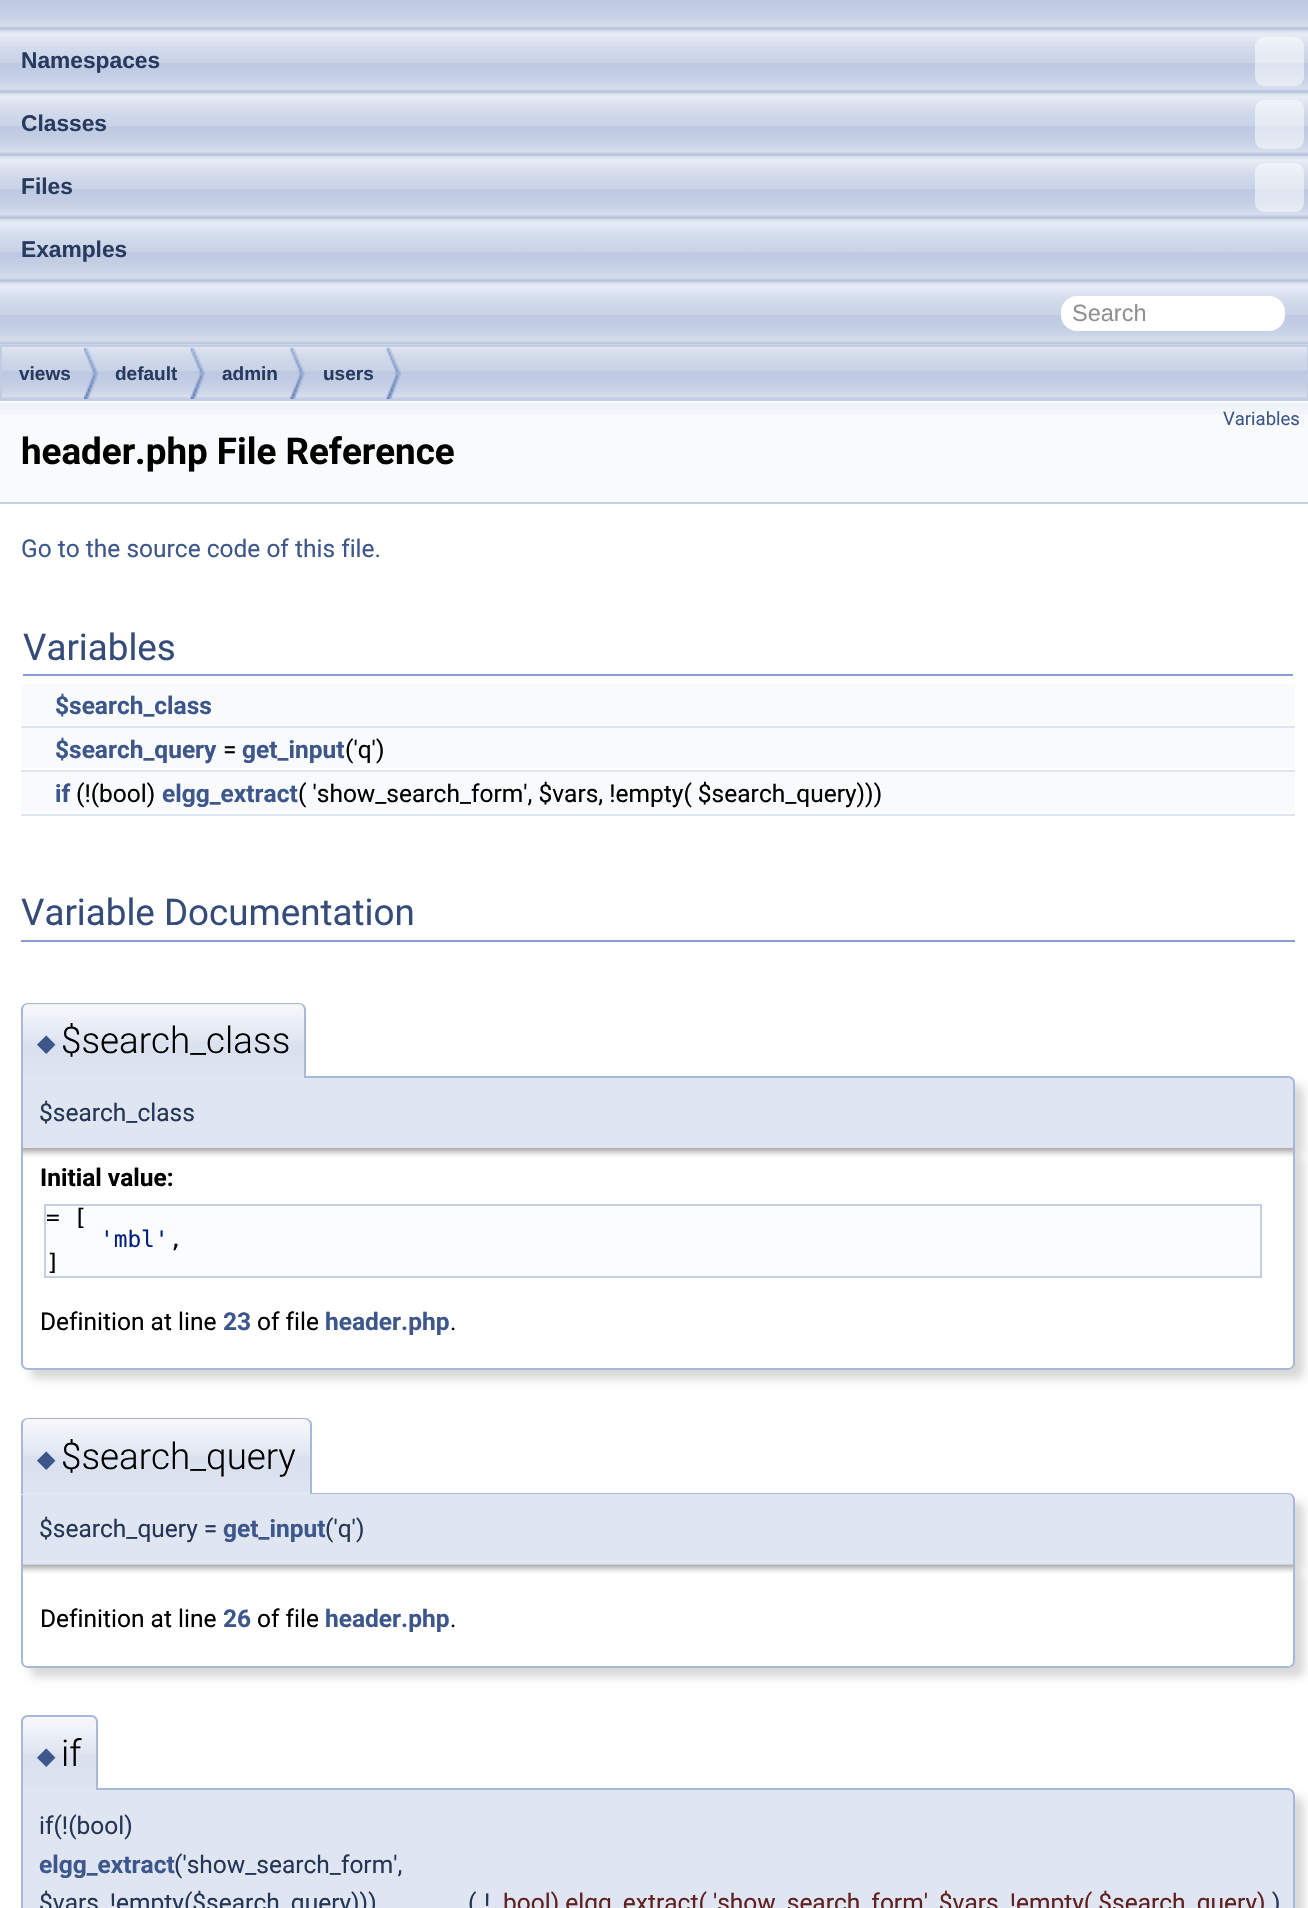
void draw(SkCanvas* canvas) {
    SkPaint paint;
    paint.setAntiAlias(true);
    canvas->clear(0xFFFFFFFF);
    canvas->drawImageRect(SkImages::DeferredFromEncodedData(SkData::MakeFromFileName("img2.png")), SkRect::MakeXYWH(0, 344, 1308, 55), SkSamplingOptions());
    canvas->drawImageRect(SkImages::DeferredFromEncodedData(SkData::MakeFromFileName("img1.png")), SkRect::MakeXYWH(0, 0, 1308, 345), SkSamplingOptions());
    SkFont font1(fontMgr->matchFamilyStyle("Liberation Sans", SkFontStyle::Bold()), 22.75f);
    font1.setSubpixel(true);
    paint.setColor(0xFF283A5D);
    canvas->drawString("Namespaces", 21, 68, font1, paint);
    paint.setColor(0x80FFFFFF);
    canvas->drawRoundRect(SkRect::MakeXYWH(1255, 37, 49, 49), 9, 9, paint);
    paint.setColor(0xFF283A5D);
    canvas->drawString("Classes", 21, 131, font1, paint);
    paint.setColor(0x80FFFFFF);
    canvas->drawRoundRect(SkRect::MakeXYWH(1255, 100, 49, 49), 9, 9, paint);
    paint.setColor(0xFF283A5D);
    canvas->drawString("Files", 21, 194, font1, paint);
    paint.setColor(0x80FFFFFF);
    canvas->drawRoundRect(SkRect::MakeXYWH(1255, 163, 49, 49), 9, 9, paint);
    paint.setColor(0xFF283A5D);
    canvas->drawString("Examples", 21, 257, font1, paint);
    paint.setColor(0xFFFFFFFF);
    canvas->drawRoundRect(SkRect::MakeXYWH(1061, 296, 224, 35), 16, 16, paint);
    SkFont font2(fontMgr->matchFamilyStyle("Liberation Sans", SkFontStyle::Normal()), 23.5f);
    font2.setSubpixel(true);
    paint.setColor(0xFF909090);
    canvas->drawString("Search", 1072, 321, font2, paint);
    paint.setStyle(SkPaint::kStroke_Style);
    paint.setStrokeWidth(2);
    paint.setColor(0xFFC2CDE4);
    canvas->drawRect(SkRect::MakeXYWH(1, 346, 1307, 54), paint);
    canvas->drawImageRect(SkImages::DeferredFromEncodedData(SkData::MakeFromFileName("img3.png")), SkRect::MakeXYWH(84, 348, 14, 51), SkSamplingOptions());
    SkFont font3(fontMgr->matchFamilyStyle("Liberation Sans", SkFontStyle::Bold()), 19);
    font3.setSubpixel(true);
    paint.setStyle(SkPaint::kFill_Style);
    paint.setColor(0xFF283A5D);
    canvas->drawString("views", 19, 380, font3, paint);
    canvas->drawImageRect(SkImages::DeferredFromEncodedData(SkData::MakeFromFileName("img4.png")), SkRect::MakeXYWH(190, 348, 15, 51), SkSamplingOptions());
    canvas->drawString("default", 115, 380, font3, paint);
    canvas->drawImageRect(SkImages::DeferredFromEncodedData(SkData::MakeFromFileName("img5.png")), SkRect::MakeXYWH(290, 348, 15, 51), SkSamplingOptions());
    canvas->drawString("admin", 222, 380, font3, paint);
    canvas->drawImageRect(SkImages::DeferredFromEncodedData(SkData::MakeFromFileName("img6.png")), SkRect::MakeXYWH(386, 348, 15, 51), SkSamplingOptions());
    canvas->drawString("users", 323, 380, font3, paint);
    paint.setColor(0xFFF9FAFC);
    canvas->drawRect(SkRect::MakeXYWH(0, 415, 1308, 87), paint);
    canvas->drawImageRect(SkImages::DeferredFromEncodedData(SkData::MakeFromFileName("img7.png")), SkRect::MakeXYWH(0, 401, 1308, 14), SkSamplingOptions());
    paint.setColor(0xFFC4CFE5);
    canvas->drawRect(SkRect::MakeXYWH(0, 502, 1308, 2), paint);
    SkFont font4(fontMgr->matchFamilyStyle("Roboto", SkFontStyle::Normal()), 18.5f);
    font4.setSubpixel(true);
    paint.setColor(0xFF3D578C);
    canvas->drawString("Variables", 1223, 425, font4, paint);
    SkFont font5(fontMgr->matchFamilyStyle("Roboto", SkFontStyle::Bold()), 36.75f);
    font5.setSubpixel(true);
    paint.setColor(0xFF000000);
    canvas->drawString("header.php File Reference", 21, 464, font5, paint);
    SkFont font6(fontMgr->matchFamilyStyle("Roboto", SkFontStyle::Normal()), 24.5f);
    font6.setSubpixel(true);
    paint.setColor(0xFF3D578C);
    canvas->drawString("Go to the source code of this file.", 21, 557, font6, paint);
    paint.setColor(0xFF879ECB);
    canvas->drawRect(SkRect::MakeXYWH(23, 674, 1270, 2), paint);
    SkFont font7(fontMgr->matchFamilyStyle("Roboto", SkFontStyle::Normal()), 36.75f);
    font7.setSubpixel(true);
    paint.setColor(0xFF354C7B);
    canvas->drawString("Variables", 23, 660, font7, paint);
    paint.setColor(0xFFF9FAFC);
    canvas->drawRect(SkRect::MakeXYWH(21, 684, 1274, 41), paint);
    SkFont font8(fontMgr->matchFamilyStyle("Roboto", SkFontStyle::Bold()), 24.5f);
    font8.setSubpixel(true);
    paint.setColor(0xFF3D578C);
    canvas->drawString("$search_class", 55, 714, font8, paint);
    paint.setColor(0xFFDEE4F0);
    canvas->drawRect(SkRect::MakeXYWH(21, 726, 1274, 2), paint);
    paint.setColor(0xFFF9FAFC);
    canvas->drawRect(SkRect::MakeXYWH(21, 728, 1274, 40), paint);
    paint.setColor(0xFF3D578C);
    canvas->drawString("$search_query", 55, 758, font8, paint);
    paint.setColor(0xFF000000);
    canvas->drawString("=", 223, 758, font6, paint);
    paint.setColor(0xFF3D578C);
    canvas->drawString("get_input", 242, 758, font8, paint);
    paint.setColor(0xFF000000);
    canvas->drawString("('q')", 345, 758, font6, paint);
    paint.setColor(0xFFDEE4F0);
    canvas->drawRect(SkRect::MakeXYWH(21, 770, 1274, 2), paint);
    paint.setColor(0xFFF9FAFC);
    canvas->drawRect(SkRect::MakeXYWH(21, 772, 1274, 40), paint);
    paint.setColor(0xFF3D578C);
    canvas->drawString("if", 55, 802, font8, paint);
    paint.setColor(0xFF000000);
    canvas->drawString("(!(bool)", 76, 802, font6, paint);
    paint.setColor(0xFF3D578C);
    canvas->drawString("elgg_extract", 162, 802, font8, paint);
    paint.setColor(0xFF000000);
    canvas->drawString("( 'show_search_form', $vars, !empty( $search_query)))", 298, 802, font6, paint);
    paint.setColor(0xFFDEE4F0);
    canvas->drawRect(SkRect::MakeXYWH(21, 814, 1274, 2), paint);
    paint.setColor(0xFF879ECB);
    canvas->drawRect(SkRect::MakeXYWH(21, 940, 1274, 2), paint);
    paint.setColor(0xFF354C7B);
    canvas->drawString("Variable Documentation", 21, 925, font7, paint);
    paint.setColor(0x26000000);
    paint.setMaskFilter(SkMaskFilter::MakeBlur(kNormal_SkBlurStyle, 4.5f));
    canvas->drawRoundRect(SkRect::MakeXYWH(30, 1085, 1274, 72), 7, 7, paint);
    paint.setMaskFilter(nullptr);
    paint.setColor(0xFFDFE5F1);
    canvas->drawPath(SkPathBuilder().moveTo(21, 1076).lineTo(1288, 1076).cubicTo(1292, 1076, 1295, 1079, 1295, 1083).lineTo(1295, 1148).lineTo(21, 1148).close().detach(), paint);
    paint.setColor(0xFFA8B8D9);
    canvas->drawPath(SkPathBuilder(SkPathFillType::kEvenOdd).moveTo(21, 1076).lineTo(1288, 1076).cubicTo(1292, 1076, 1295, 1079, 1295, 1083).lineTo(1295, 1148).lineTo(21, 1148).close().moveTo(23, 1078).lineTo(1288, 1078).cubicTo(1291, 1078, 1293, 1080, 1293, 1083).lineTo(1293, 1148).lineTo(23, 1148).close().detach(), paint);
    paint.setColor(0xFFE2E8F2);
    canvas->drawPath(SkPathBuilder().moveTo(28, 1003).lineTo(299, 1003).cubicTo(303, 1003, 306, 1006, 306, 1010).lineTo(306, 1078).lineTo(21, 1078).lineTo(21, 1010).cubicTo(21, 1006, 24, 1003, 28, 1003).close().detach(), paint);
    canvas->drawImageRect(SkImages::DeferredFromEncodedData(SkData::MakeFromFileName("img8.png")), SkRect::MakeXYWH(21, 1004, 285, 73), SkSamplingOptions());
    paint.setColor(0xFFA8B8D9);
    canvas->drawPath(SkPathBuilder(SkPathFillType::kEvenOdd).moveTo(28, 1003).lineTo(299, 1003).cubicTo(303, 1003, 306, 1006, 306, 1010).lineTo(306, 1078).lineTo(21, 1078).lineTo(21, 1010).cubicTo(21, 1006, 24, 1003, 28, 1003).close().moveTo(28, 1004).lineTo(299, 1004).cubicTo(302, 1004, 304, 1007, 304, 1010).lineTo(304, 1078).lineTo(23, 1078).lineTo(23, 1010).cubicTo(23, 1007, 25, 1004, 28, 1004).close().detach(), paint);
    SkFont font9(fontMgr->matchFamilyStyle("DejaVu Sans", SkFontStyle::Normal()), 24);
    font9.setSubpixel(true);
    paint.setColor(0xFF3D578C);
    canvas->drawString("◆", 37, 1051, font9, paint);
    SkFont font10(fontMgr->matchFamilyStyle("Roboto", SkFontStyle(300, SkFontStyle::kNormal_Width, SkFontStyle::kUpright_Slant)), 36.75f);
    font10.setSubpixel(true);
    paint.setColor(0xFF000000);
    canvas->drawString("$search_class", 61, 1053, font10, paint);
    paint.setColor(0xFF253555);
    canvas->drawString("$search_class", 39, 1121, font6, paint);
    paint.setColor(0x26000000);
    paint.setMaskFilter(SkMaskFilter::MakeBlur(kNormal_SkBlurStyle, 4.5f));
    canvas->drawRoundRect(SkRect::MakeXYWH(30, 1157, 1274, 222), 7, 7, paint);
    paint.setMaskFilter(nullptr);
    paint.setColor(0xFFFFFFFF);
    canvas->drawPath(SkPathBuilder().moveTo(21, 1148).lineTo(1295, 1148).lineTo(1295, 1363).cubicTo(1295, 1367, 1292, 1370, 1288, 1370).lineTo(28, 1370).cubicTo(24, 1370, 21, 1367, 21, 1363).close().detach(), paint);
    canvas->drawImageRect(SkImages::DeferredFromEncodedData(SkData::MakeFromFileName("img9.png")), SkRect::MakeXYWH(23, 1148, 1270, 9), SkSamplingOptions());
    paint.setColor(0xFFA8B8D9);
    canvas->drawPath(SkPathBuilder(SkPathFillType::kEvenOdd).moveTo(21, 1148).lineTo(1295, 1148).lineTo(1295, 1363).cubicTo(1295, 1367, 1292, 1370, 1288, 1370).lineTo(28, 1370).cubicTo(24, 1370, 21, 1367, 21, 1363).close().moveTo(23, 1148).lineTo(1293, 1148).lineTo(1293, 1363).cubicTo(1293, 1366, 1291, 1368, 1288, 1368).lineTo(28, 1368).cubicTo(25, 1368, 23, 1366, 23, 1363).close().detach(), paint);
    paint.setColor(0xFF000000);
    canvas->drawString("Initial value:", 40, 1186, font8, paint);
    paint.setColor(0xFFFBFCFD);
    canvas->drawRect(SkRect::MakeXYWH(45, 1205, 1216, 72), paint);
    paint.setStyle(SkPaint::kStroke_Style);
    paint.setColor(0xFFC4CFE5);
    canvas->drawRect(SkRect::MakeXYWH(45, 1205, 1216, 72), paint);
    SkFont font11(fontMgr->matchFamilyStyle("DejaVu Sans Mono", SkFontStyle::Normal()), 22.75f);
    font11.setSubpixel(true);
    paint.setStyle(SkPaint::kFill_Style);
    paint.setColor(0xFF000000);
    canvas->drawString("= [", 46, 1225, font11, paint);
    paint.setColor(0xFF002080);
    canvas->drawString("'mbl'", 100, 1247, font11, paint);
    paint.setColor(0xFF000000);
    canvas->drawString(",", 169, 1247, font11, paint);
    canvas->drawString("]", 46, 1270, font11, paint);
    canvas->drawString("Definition at line", 40, 1330, font6, paint);
    paint.setColor(0xFF3D578C);
    canvas->drawString("23", 223, 1330, font8, paint);
    paint.setColor(0xFF000000);
    canvas->drawString("of file", 257, 1330, font6, paint);
    paint.setColor(0xFF3D578C);
    canvas->drawString("header.php", 325, 1330, font8, paint);
    paint.setColor(0xFF000000);
    canvas->drawString(".", 450, 1330, font6, paint);
    paint.setColor(0x26000000);
    paint.setMaskFilter(SkMaskFilter::MakeBlur(kNormal_SkBlurStyle, 4.5f));
    canvas->drawRoundRect(SkRect::MakeXYWH(30, 1502, 1274, 71), 7, 7, paint);
    paint.setMaskFilter(nullptr);
    paint.setColor(0xFFDFE5F1);
    canvas->drawPath(SkPathBuilder().moveTo(21, 1493).lineTo(1288, 1493).cubicTo(1292, 1493, 1295, 1496, 1295, 1500).lineTo(1295, 1565).lineTo(21, 1565).close().detach(), paint);
    paint.setColor(0xFFA8B8D9);
    canvas->drawPath(SkPathBuilder(SkPathFillType::kEvenOdd).moveTo(21, 1493).lineTo(1288, 1493).cubicTo(1292, 1493, 1295, 1496, 1295, 1500).lineTo(1295, 1564).lineTo(21, 1564).close().moveTo(23, 1494).lineTo(1288, 1494).cubicTo(1291, 1494, 1293, 1497, 1293, 1500).lineTo(1293, 1564).lineTo(23, 1564).close().detach(), paint);
    paint.setColor(0xFFE2E8F2);
    canvas->drawPath(SkPathBuilder().moveTo(28, 1418).lineTo(305, 1418).cubicTo(309, 1418, 312, 1421, 312, 1425).lineTo(312, 1495).lineTo(21, 1495).lineTo(21, 1425).cubicTo(21, 1421, 24, 1418, 28, 1418).close().detach(), paint);
    canvas->drawImageRect(SkImages::DeferredFromEncodedData(SkData::MakeFromFileName("img10.png")), SkRect::MakeXYWH(21, 1419, 291, 73), SkSamplingOptions());
    paint.setColor(0xFFA8B8D9);
    canvas->drawPath(SkPathBuilder(SkPathFillType::kEvenOdd).moveTo(28, 1418).lineTo(304, 1418).cubicTo(308, 1418, 312, 1421, 312, 1424).lineTo(312, 1494).lineTo(21, 1494).lineTo(21, 1424).cubicTo(21, 1421, 24, 1418, 28, 1418).close().moveTo(28, 1419).lineTo(304, 1419).cubicTo(307, 1419, 310, 1422, 310, 1424).lineTo(310, 1494).lineTo(23, 1494).lineTo(23, 1424).cubicTo(23, 1422, 25, 1419, 28, 1419).close().detach(), paint);
    paint.setColor(0xFF3D578C);
    canvas->drawString("◆", 37, 1467, font9, paint);
    paint.setColor(0xFF000000);
    canvas->drawString("$search_query", 61, 1469, font10, paint);
    paint.setColor(0xFF253555);
    canvas->drawString("$search_query =", 39, 1537, font6, paint);
    paint.setColor(0xFF3D578C);
    canvas->drawString("get_input", 223, 1537, font8, paint);
    paint.setColor(0xFF253555);
    canvas->drawString("('q')", 325, 1537, font6, paint);
    paint.setColor(0x26000000);
    paint.setMaskFilter(SkMaskFilter::MakeBlur(kNormal_SkBlurStyle, 4.5f));
    canvas->drawRoundRect(SkRect::MakeXYWH(30, 1573, 1274, 104), 7, 7, paint);
    paint.setMaskFilter(nullptr);
    paint.setColor(0xFFFFFFFF);
    canvas->drawPath(SkPathBuilder().moveTo(21, 1565).lineTo(1295, 1565).lineTo(1295, 1661).cubicTo(1295, 1665, 1292, 1668, 1288, 1668).lineTo(28, 1668).cubicTo(24, 1668, 21, 1665, 21, 1661).close().detach(), paint);
    canvas->drawImageRect(SkImages::DeferredFromEncodedData(SkData::MakeFromFileName("img11.png")), SkRect::MakeXYWH(23, 1564, 1270, 9), SkSamplingOptions());
    paint.setColor(0xFFA8B8D9);
    canvas->drawPath(SkPathBuilder(SkPathFillType::kEvenOdd).moveTo(21, 1564).lineTo(1295, 1564).lineTo(1295, 1661).cubicTo(1295, 1665, 1292, 1668, 1288, 1668).lineTo(28, 1668).cubicTo(24, 1668, 21, 1665, 21, 1661).close().moveTo(23, 1564).lineTo(1293, 1564).lineTo(1293, 1661).cubicTo(1293, 1664, 1291, 1666, 1288, 1666).lineTo(28, 1666).cubicTo(25, 1666, 23, 1664, 23, 1661).close().detach(), paint);
    paint.setColor(0xFF000000);
    canvas->drawString("Definition at line", 40, 1627, font6, paint);
    paint.setColor(0xFF3D578C);
    canvas->drawString("26", 223, 1627, font8, paint);
    paint.setColor(0xFF000000);
    canvas->drawString("of file", 257, 1627, font6, paint);
    paint.setColor(0xFF3D578C);
    canvas->drawString("header.php", 325, 1627, font8, paint);
    paint.setColor(0xFF000000);
    canvas->drawString(".", 450, 1627, font6, paint);
    paint.setColor(0x26000000);
    paint.setMaskFilter(SkMaskFilter::MakeBlur(kNormal_SkBlurStyle, 4.5f));
    canvas->drawRoundRect(SkRect::MakeXYWH(30, 1797, 1274, 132), 7, 7, paint);
    paint.setMaskFilter(nullptr);
    paint.setColor(0xFFDFE5F1);
    canvas->drawPath(SkPathBuilder().moveTo(21, 1789).lineTo(1288, 1789).cubicTo(1292, 1789, 1295, 1792, 1295, 1796).lineTo(1295, 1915).lineTo(21, 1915).close().detach(), paint);
    paint.setColor(0xFFA8B8D9);
    canvas->drawPath(SkPathBuilder(SkPathFillType::kEvenOdd).moveTo(21, 1788).lineTo(1288, 1788).cubicTo(1292, 1788, 1295, 1792, 1295, 1796).lineTo(1295, 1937).lineTo(21, 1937).close().moveTo(23, 1790).lineTo(1288, 1790).cubicTo(1291, 1790, 1293, 1793, 1293, 1796).lineTo(1293, 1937).lineTo(23, 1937).close().detach(), paint);
    paint.setColor(0xFFE2E8F2);
    canvas->drawPath(SkPathBuilder().moveTo(28, 1715).lineTo(91, 1715).cubicTo(95, 1715, 98, 1718, 98, 1722).lineTo(98, 1790).lineTo(21, 1790).lineTo(21, 1722).cubicTo(21, 1718, 24, 1715, 28, 1715).close().detach(), paint);
    canvas->drawImageRect(SkImages::DeferredFromEncodedData(SkData::MakeFromFileName("img12.png")), SkRect::MakeXYWH(21, 1716, 77, 73), SkSamplingOptions());
    paint.setColor(0xFFA8B8D9);
    canvas->drawPath(SkPathBuilder(SkPathFillType::kEvenOdd).moveTo(28, 1715).lineTo(91, 1715).cubicTo(95, 1715, 98, 1718, 98, 1722).lineTo(98, 1790).lineTo(21, 1790).lineTo(21, 1722).cubicTo(21, 1718, 24, 1715, 28, 1715).close().moveTo(28, 1717).lineTo(91, 1717).cubicTo(94, 1717, 96, 1719, 96, 1722).lineTo(96, 1790).lineTo(23, 1790).lineTo(23, 1722).cubicTo(23, 1719, 25, 1717, 28, 1717).close().detach(), paint);
    paint.setColor(0xFF3D578C);
    canvas->drawString("◆", 37, 1764, font9, paint);
    paint.setColor(0xFF000000);
    canvas->drawString("if", 61, 1766, font10, paint);
    paint.setColor(0xFF253555);
    canvas->drawString("if(!(bool)", 39, 1834, font6, paint);
    paint.setColor(0xFF3D578C);
    canvas->drawString("elgg_extract", 39, 1873, font8, paint);
    paint.setColor(0xFF253555);
    canvas->drawString("('show_search_form',", 174, 1873, font6, paint);
    canvas->drawString("$vars, !empty($search_query)))", 39, 1911, font6, paint);
    canvas->drawString("(", 468, 1911, font6, paint);
    canvas->drawString("!", 484, 1911, font6, paint);
    paint.setColor(0xFF602020);
    canvas->drawString("bool) elgg_extract( 'show_search_form', $vars, !empty( $search_query)", 503, 1911, font6, paint);
    paint.setColor(0xFF253555);
    canvas->drawString(")", 1272, 1911, font6, paint);
}
